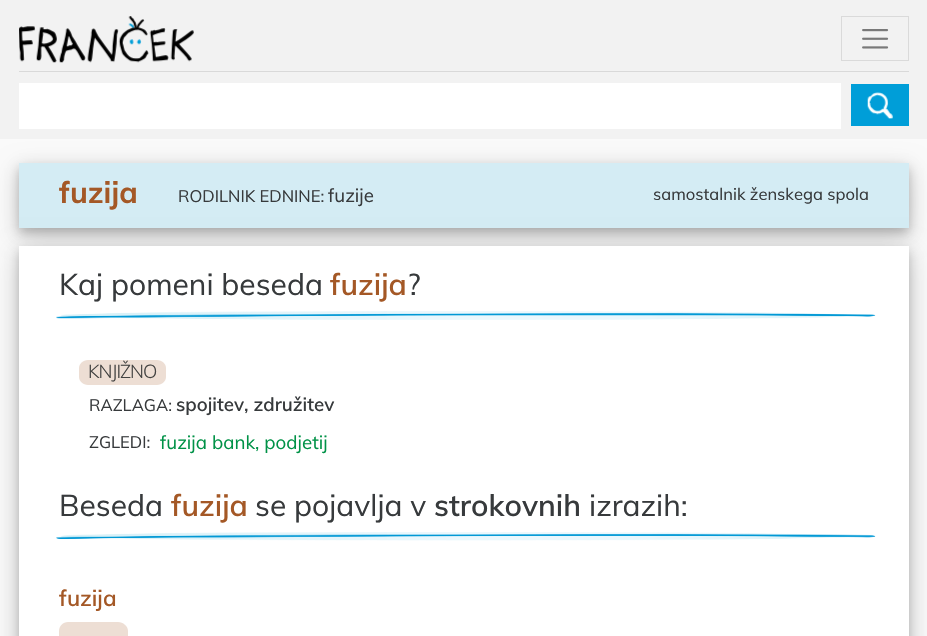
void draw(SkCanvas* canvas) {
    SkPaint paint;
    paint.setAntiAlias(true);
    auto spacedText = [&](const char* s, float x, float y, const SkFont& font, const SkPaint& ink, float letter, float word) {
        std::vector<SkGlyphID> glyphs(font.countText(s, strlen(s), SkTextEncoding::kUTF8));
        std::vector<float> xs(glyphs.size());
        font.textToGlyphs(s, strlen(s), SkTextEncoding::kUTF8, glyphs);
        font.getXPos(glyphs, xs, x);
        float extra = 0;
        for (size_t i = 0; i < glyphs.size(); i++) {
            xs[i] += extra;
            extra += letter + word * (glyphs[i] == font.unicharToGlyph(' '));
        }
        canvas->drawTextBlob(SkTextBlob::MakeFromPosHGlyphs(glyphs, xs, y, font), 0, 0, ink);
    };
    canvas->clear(0xFFFAFAFA);
    canvas->save();
    canvas->clipPath(SkPathBuilder(SkPathFillType::kEvenOdd).moveTo(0, 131).lineTo(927, 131).lineTo(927, 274).lineTo(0, 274).close().moveTo(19, 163).lineTo(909, 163).lineTo(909, 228).lineTo(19, 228).close().detach(), true);
    paint.setColor(0x30000000);
    paint.setMaskFilter(SkMaskFilter::MakeBlur(kNormal_SkBlurStyle, 12.5f));
    canvas->drawRect(SkRect::MakeXYWH(19, 170, 890, 65), paint);
    paint.setMaskFilter(nullptr);
    canvas->restore();
    paint.setColor(0xFFF2F2F2);
    canvas->drawRect(SkRect::MakeXYWH(0, 0, 927, 139), paint);
    canvas->drawImageRect(SkImages::DeferredFromEncodedData(SkData::MakeFromFileName("img1.png")), SkRect::MakeXYWH(19, 16, 175, 47), SkSamplingOptions());
    paint.setStyle(SkPaint::kStroke_Style);
    paint.setStrokeWidth(1);
    paint.setColor(0xFFDADADA);
    canvas->drawRect(SkRect::MakeXYWH(841.5f, 16.5f, 67, 44), paint);
    canvas->drawImageRect(SkImages::DeferredFromEncodedData(SkData::MakeFromFileName("img2.png")), SkRect::MakeXYWH(862, 29, 27, 20), SkSamplingOptions());
    paint.setStyle(SkPaint::kFill_Style);
    paint.setColor(0xFFD9D9D9);
    canvas->drawRect(SkRect::MakeXYWH(19, 71, 890, 1), paint);
    paint.setColor(0xFFFFFFFF);
    canvas->drawRect(SkRect::MakeXYWH(19, 83, 822, 46), paint);
    paint.setColor(0xFF009ED8);
    canvas->drawRect(SkRect::MakeXYWH(851, 84, 58, 42), paint);
    canvas->drawImageRect(SkImages::DeferredFromEncodedData(SkData::MakeFromFileName("img3.png")), SkRect::MakeXYWH(867, 92, 26, 27), SkSamplingOptions());
    canvas->save();
    canvas->clipPath(SkPathBuilder(SkPathFillType::kEvenOdd).moveTo(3, 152).lineTo(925, 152).lineTo(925, 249).lineTo(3, 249).close().moveTo(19, 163).lineTo(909, 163).lineTo(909, 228).lineTo(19, 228).close().detach(), true);
    paint.setColor(0x33000000);
    paint.setMaskFilter(SkMaskFilter::MakeBlur(kNormal_SkBlurStyle, 5));
    canvas->drawRect(SkRect::MakeXYWH(19, 168, 890, 65), paint);
    paint.setMaskFilter(nullptr);
    canvas->restore();
    paint.setColor(0x26009ED8);
    canvas->drawRect(SkRect::MakeXYWH(19, 163, 890, 65), paint);
    SkFont font1(fontMgr->matchFamilyStyle("Muli", SkFontStyle::Bold()), 30);
    font1.setSubpixel(true);
    paint.setColor(0xFFA45826);
    canvas->drawString("fuzija", 59, 203, font1, paint);
    SkFont font2(fontMgr->matchFamilyStyle("Muli", SkFontStyle::Normal()), 16.6f);
    font2.setSubpixel(true);
    paint.setColor(0xFF373A3C);
    canvas->drawString("RODILNIK EDNINE:", 178, 202, font2, paint);
    SkFont font3(fontMgr->matchFamilyStyle("Muli", SkFontStyle::Normal()), 18.75f);
    font3.setSubpixel(true);
    canvas->drawString("fuzije", 328, 202, font3, paint);
    canvas->drawString("samostalnik ženskega spola", 653, 200, font2, paint);
    paint.setColor(0x30000000);
    paint.setMaskFilter(SkMaskFilter::MakeBlur(kNormal_SkBlurStyle, 12.5f));
    canvas->drawRect(SkRect::MakeXYWH(19, 254, 890, 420), paint);
    paint.setMaskFilter(nullptr);
    paint.setColor(0x33000000);
    paint.setMaskFilter(SkMaskFilter::MakeBlur(kNormal_SkBlurStyle, 5));
    canvas->drawRect(SkRect::MakeXYWH(19, 251, 890, 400), paint);
    paint.setMaskFilter(nullptr);
    paint.setColor(0xFFFFFFFF);
    canvas->drawRect(SkRect::MakeXYWH(19, 246, 890, 390), paint);
    SkFont font4(fontMgr->matchFamilyStyle("Muli", SkFontStyle::Normal()), 30);
    font4.setSubpixel(true);
    paint.setColor(0xFF373A3C);
    canvas->drawString("Kaj pomeni beseda", 59, 295, font4, paint);
    SkFont font5(fontMgr->matchFamilyStyle("Muli", SkFontStyle(600, SkFontStyle::kNormal_Width, SkFontStyle::kUpright_Slant)), 30);
    font5.setSubpixel(true);
    paint.setColor(0xFFA45826);
    canvas->drawString("fuzija", 330, 295, font5, paint);
    paint.setColor(0xFF373A3C);
    canvas->drawString("?", 407, 295, font4, paint);
    canvas->drawImageRect(SkImages::DeferredFromEncodedData(SkData::MakeFromFileName("img4.png")), SkRect::MakeXYWH(56, 311, 820, 9), SkSamplingOptions());
    paint.setColor(0xFFEDDED4);
    canvas->drawPath(SkPathBuilder().moveTo(88, 360).lineTo(157, 360).cubicTo(162, 360, 166, 364, 166, 368).lineTo(166, 377).cubicTo(166, 381, 162, 385, 157, 385).lineTo(88, 385).cubicTo(83, 385, 79, 381, 79, 377).lineTo(79, 368).cubicTo(79, 364, 83, 360, 88, 360).close().detach(), paint);
    SkFont font6(fontMgr->matchFamilyStyle("Muli", SkFontStyle(300, SkFontStyle::kNormal_Width, SkFontStyle::kUpright_Slant)), 18.75f);
    font6.setSubpixel(true);
    paint.setColor(0xFF424241);
    spacedText("KNJIŽNO", 88, 378, font6, paint, -1, 0);
    paint.setColor(0xFF373A3C);
    canvas->drawString("RAZLAGA:", 89, 411, font2, paint);
    SkFont font7(fontMgr->matchFamilyStyle("Muli", SkFontStyle(600, SkFontStyle::kNormal_Width, SkFontStyle::kUpright_Slant)), 18.75f);
    font7.setSubpixel(true);
    canvas->drawString("spojitev, združitev", 176, 411, font7, paint);
    canvas->drawString("ZGLEDI:", 89, 448, font2, paint);
    paint.setColor(0xFF009247);
    canvas->drawString("fuzija bank, podjetij", 160, 449, font3, paint);
    paint.setColor(0xFF373A3C);
    canvas->drawString("Beseda", 59, 516, font4, paint);
    paint.setColor(0xFFA45826);
    canvas->drawString("fuzija", 171, 516, font5, paint);
    paint.setColor(0xFF373A3C);
    canvas->drawString("se pojavlja v", 255, 516, font4, paint);
    canvas->drawString("strokovnih", 434, 516, font5, paint);
    canvas->drawString("izrazih:", 589, 516, font4, paint);
    canvas->drawImageRect(SkImages::DeferredFromEncodedData(SkData::MakeFromFileName("img5.png")), SkRect::MakeXYWH(56, 532, 820, 9), SkSamplingOptions());
    SkFont font8(fontMgr->matchFamilyStyle("Muli", SkFontStyle(600, SkFontStyle::kNormal_Width, SkFontStyle::kUpright_Slant)), 22.5f);
    font8.setSubpixel(true);
    paint.setColor(0xFFA45826);
    canvas->drawString("fuzija", 59, 606, font8, paint);
    paint.setColor(0xFFEDDED4);
    canvas->drawPath(SkPathBuilder().moveTo(68, 622).lineTo(118, 622).cubicTo(123, 622, 128, 626, 128, 631).lineTo(128, 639).cubicTo(128, 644, 123, 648, 118, 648).lineTo(68, 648).cubicTo(63, 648, 59, 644, 59, 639).lineTo(59, 631).cubicTo(59, 626, 63, 622, 68, 622).close().detach(), paint);
}
